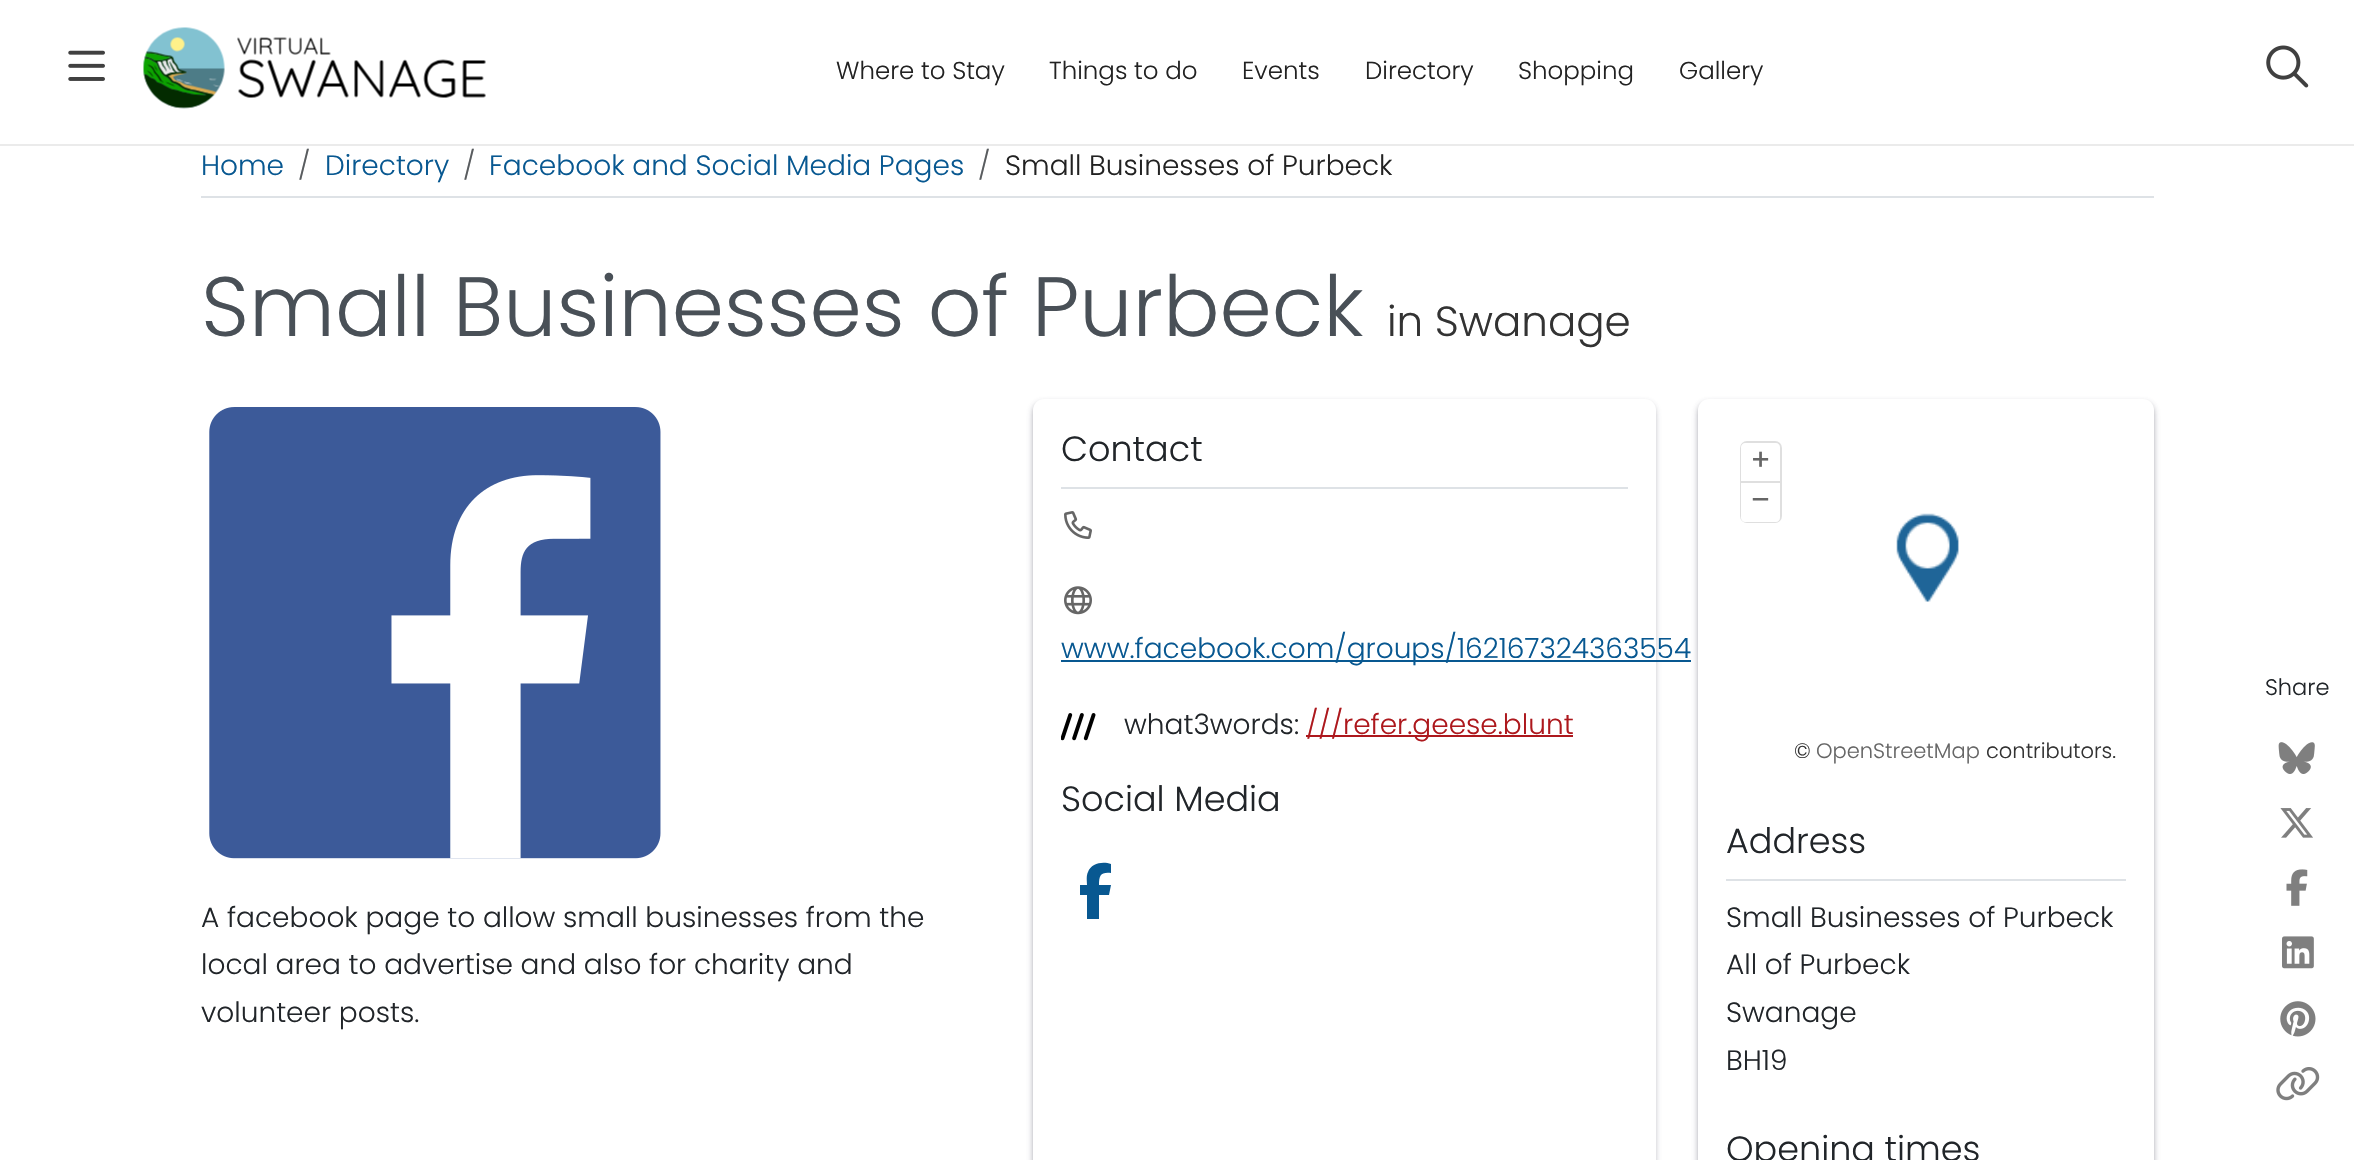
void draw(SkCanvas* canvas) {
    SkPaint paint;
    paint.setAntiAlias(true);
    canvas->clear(0xFFFFFFFF);
    paint.setColor(0xFFEBEBEB);
    canvas->drawRect(SkRect::MakeXYWH(0, 144, 2354, 2), paint);
    canvas->drawImageRect(SkImages::DeferredFromEncodedData(SkData::MakeFromFileName("img1.png")), SkRect::MakeXYWH(68, 50, 37, 31), SkSamplingOptions());
    canvas->drawImageRect(SkImages::DeferredFromEncodedData(SkData::MakeFromFileName("img2.png")), SkRect::MakeXYWH(143, 27, 343, 82), SkSamplingOptions());
    SkFont font1(fontMgr->matchFamilyStyle("Poppins", SkFontStyle(300, SkFontStyle::kNormal_Width, SkFontStyle::kUpright_Slant)), 24.5f);
    font1.setSubpixel(true);
    paint.setColor(0xFF222222);
    canvas->drawString("Where to Stay", 836, 79, font1, paint);
    canvas->drawString("Things to do", 1049, 79, font1, paint);
    canvas->drawString("Events", 1242, 79, font1, paint);
    canvas->drawString("Directory", 1365, 79, font1, paint);
    canvas->drawString("Shopping", 1518, 79, font1, paint);
    canvas->drawString("Gallery", 1679, 79, font1, paint);
    canvas->drawImageRect(SkImages::DeferredFromEncodedData(SkData::MakeFromFileName("img3.png")), SkRect::MakeXYWH(2266, 45, 43, 43), SkSamplingOptions());
    paint.setColor(0xFFDEE2E6);
    canvas->drawRect(SkRect::MakeXYWH(201, 196, 1953, 2), paint);
    SkFont font2(fontMgr->matchFamilyStyle("Poppins", SkFontStyle(300, SkFontStyle::kNormal_Width, SkFontStyle::kUpright_Slant)), 28);
    font2.setSubpixel(true);
    paint.setColor(0xFF085891);
    canvas->drawString("Home", 201, 175, font2, paint);
    paint.setColor(0xFF595C5F);
    canvas->drawString("/", 298, 175, font2, paint);
    paint.setColor(0xFF085891);
    canvas->drawString("Directory", 325, 175, font2, paint);
    paint.setColor(0xFF595C5F);
    canvas->drawString("/", 463, 175, font2, paint);
    paint.setColor(0xFF085891);
    canvas->drawString("Facebook and Social Media Pages", 489, 175, font2, paint);
    paint.setColor(0xFF595C5F);
    canvas->drawString("/", 978, 175, font2, paint);
    paint.setColor(0xFF222222);
    canvas->drawString("Small Businesses of Purbeck", 1005, 175, font2, paint);
    SkFont font3(fontMgr->matchFamilyStyle("Poppins", SkFontStyle(300, SkFontStyle::kNormal_Width, SkFontStyle::kUpright_Slant)), 84);
    font3.setSubpixel(true);
    paint.setColor(0xFF495057);
    canvas->drawString("Small Businesses of Purbeck", 201, 336, font3, paint);
    SkFont font4(fontMgr->matchFamilyStyle("Poppins", SkFontStyle(300, SkFontStyle::kNormal_Width, SkFontStyle::kUpright_Slant)), 42);
    font4.setSubpixel(true);
    paint.setColor(0xFF333333);
    canvas->drawString("in Swanage", 1387, 336, font4, paint);
    canvas->drawImageRect(SkImages::DeferredFromEncodedData(SkData::MakeFromFileName("img4.png")), SkRect::MakeXYWH(209, 407, 452, 452), SkSamplingOptions());
    paint.setColor(0xFF212529);
    canvas->drawString("A facebook page to allow small businesses from the", 201, 927, font2, paint);
    canvas->drawString("local area to advertise and also for charity and", 201, 974, font2, paint);
    canvas->drawString("volunteer posts.", 201, 1022, font2, paint);
    paint.setColor(0x4D000000);
    paint.setMaskFilter(SkMaskFilter::MakeBlur(kNormal_SkBlurStyle, 2.5f));
    canvas->drawRoundRect(SkRect::MakeXYWH(1034, 403, 620, 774), 9, 9, paint);
    paint.setMaskFilter(nullptr);
    paint.setColor(0x4032325D);
    paint.setMaskFilter(SkMaskFilter::MakeBlur(kNormal_SkBlurStyle, 4.5f));
    canvas->drawRoundRect(SkRect::MakeXYWH(1034, 404, 620, 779), 9, 9, paint);
    paint.setMaskFilter(nullptr);
    paint.setColor(0xFFFFFFFF);
    canvas->drawRoundRect(SkRect::MakeXYWH(1033, 399, 623, 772), 11, 11, paint);
    paint.setColor(0xFFDEE2E6);
    canvas->drawRect(SkRect::MakeXYWH(1061, 487, 567, 2), paint);
    SkFont font5(fontMgr->matchFamilyStyle("Poppins", SkFontStyle(300, SkFontStyle::kNormal_Width, SkFontStyle::kUpright_Slant)), 35);
    font5.setSubpixel(true);
    paint.setColor(0xFF212529);
    canvas->drawString("Contact", 1061, 461, font5, paint);
    canvas->drawImageRect(SkImages::DeferredFromEncodedData(SkData::MakeFromFileName("img5.png")), SkRect::MakeXYWH(1064, 511, 28, 28), SkSamplingOptions());
    canvas->drawImageRect(SkImages::DeferredFromEncodedData(SkData::MakeFromFileName("img6.png")), SkRect::MakeXYWH(1064, 586, 28, 29), SkSamplingOptions());
    paint.setColor(0xFF085891);
    canvas->drawRect(SkRect::MakeXYWH(1061, 660, 630, 2), paint);
    canvas->drawString("www.facebook.com/groups/162167324363554", 1061, 658, font2, paint);
    canvas->drawImageRect(SkImages::DeferredFromEncodedData(SkData::MakeFromFileName("img7.png")), SkRect::MakeXYWH(1061, 713, 35, 28), SkSamplingOptions());
    paint.setColor(0xFF212529);
    canvas->drawString("what3words:", 1124, 734, font2, paint);
    paint.setColor(0xFFAD181D);
    canvas->drawRect(SkRect::MakeXYWH(1306, 735, 267, 2), paint);
    canvas->drawString("///refer.geese.blunt", 1306, 734, font2, paint);
    paint.setColor(0xFF212529);
    canvas->drawString("Social Media", 1061, 811, font5, paint);
    paint.setColor(0xFF085891);
    canvas->drawPath(SkPathBuilder().moveTo(1087, 895).lineTo(1087, 919).lineTo(1087, 895).lineTo(1087, 919).lineTo(1099, 919).lineTo(1099, 895).lineTo(1109, 895).lineTo(1111, 885).lineTo(1099, 885).cubicTo(1099, 875, 1101, 872, 1111, 873).lineTo(1111, 864).cubicTo(1103, 861, 1091, 863, 1088, 872).cubicTo(1086, 876, 1087, 881, 1087, 885).lineTo(1080, 885).lineTo(1080, 895).close().detach(), paint);
    paint.setColor(0x4D000000);
    paint.setMaskFilter(SkMaskFilter::MakeBlur(kNormal_SkBlurStyle, 2.5f));
    canvas->drawRoundRect(SkRect::MakeXYWH(1699, 403, 454, 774), 9, 9, paint);
    paint.setMaskFilter(nullptr);
    paint.setColor(0x4032325D);
    paint.setMaskFilter(SkMaskFilter::MakeBlur(kNormal_SkBlurStyle, 4.5f));
    canvas->drawRoundRect(SkRect::MakeXYWH(1699, 404, 454, 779), 9, 9, paint);
    paint.setMaskFilter(nullptr);
    paint.setColor(0xFFFFFFFF);
    canvas->drawRoundRect(SkRect::MakeXYWH(1698, 399, 456, 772), 11, 11, paint);
    paint.setColor(0xFFDFDFDF);
    canvas->drawRoundRect(SkRect::MakeXYWH(1740, 441, 42, 82), 7, 7, paint);
    paint.setColor(0xFFFFFFFF);
    canvas->drawPath(SkPathBuilder().moveTo(1745, 443).lineTo(1776, 443).cubicTo(1778, 443, 1780, 445, 1780, 447).lineTo(1780, 481).lineTo(1741, 481).lineTo(1741, 447).cubicTo(1741, 445, 1743, 443, 1745, 443).close().detach(), paint);
    SkFont font6(fontMgr->matchFamilyStyle("Poppins", SkFontStyle::Bold()), 28);
    font6.setSubpixel(true);
    paint.setColor(0xFF666666);
    canvas->drawString("+", 1751, 470, font6, paint);
    paint.setColor(0xFFFFFFFF);
    canvas->drawPath(SkPathBuilder().moveTo(1741, 483).lineTo(1780, 483).lineTo(1780, 518).cubicTo(1780, 520, 1778, 522, 1776, 522).lineTo(1745, 522).cubicTo(1743, 522, 1741, 520, 1741, 518).close().detach(), paint);
    paint.setColor(0xFF666666);
    canvas->drawString("–", 1751, 510, font6, paint);
    SkFont font7(fontMgr->matchFamilyStyle("Poppins", SkFontStyle(300, SkFontStyle::kNormal_Width, SkFontStyle::kUpright_Slant)), 21);
    font7.setSubpixel(true);
    paint.setColor(0xFF333333);
    canvas->drawString("©", 1794, 758, font7, paint);
    paint.setColor(0xFF666666);
    canvas->drawString("OpenStreetMap", 1816, 758, font7, paint);
    paint.setColor(0xFF333333);
    canvas->drawString("contributors.", 1986, 758, font7, paint);
    canvas->drawImageRect(SkImages::DeferredFromEncodedData(SkData::MakeFromFileName("img8.png")), SkRect::MakeXYWH(1896, 513, 63, 89), SkSamplingOptions());
    paint.setColor(0xFFDEE2E6);
    canvas->drawRect(SkRect::MakeXYWH(1726, 879, 400, 2), paint);
    paint.setColor(0xFF212529);
    canvas->drawString("Address", 1726, 853, font5, paint);
    canvas->drawString("Small Businesses of Purbeck", 1726, 927, font2, paint);
    canvas->drawString("All of Purbeck", 1726, 974, font2, paint);
    canvas->drawString("Swanage", 1726, 1022, font2, paint);
    canvas->drawString("BH19", 1726, 1070, font2, paint);
    canvas->drawString("Opening times", 1726, 1161, font5, paint);
    SkFont font8(fontMgr->matchFamilyStyle("Poppins", SkFontStyle(300, SkFontStyle::kNormal_Width, SkFontStyle::kUpright_Slant)), 22.5f);
    font8.setSubpixel(true);
    canvas->drawString("Share", 2265, 695, font8, paint);
    canvas->drawImageRect(SkImages::DeferredFromEncodedData(SkData::MakeFromFileName("img9.png")), SkRect::MakeXYWH(2278, 742, 37, 32), SkSamplingOptions());
    canvas->drawImageRect(SkImages::DeferredFromEncodedData(SkData::MakeFromFileName("img10.png")), SkRect::MakeXYWH(2280, 808, 33, 30), SkSamplingOptions());
    canvas->drawImageRect(SkImages::DeferredFromEncodedData(SkData::MakeFromFileName("img11.png")), SkRect::MakeXYWH(2286, 869, 22, 37), SkSamplingOptions());
    canvas->drawImageRect(SkImages::DeferredFromEncodedData(SkData::MakeFromFileName("img12.png")), SkRect::MakeXYWH(2282, 936, 32, 33), SkSamplingOptions());
    canvas->drawImageRect(SkImages::DeferredFromEncodedData(SkData::MakeFromFileName("img13.png")), SkRect::MakeXYWH(2280, 1001, 36, 36), SkSamplingOptions());
    canvas->drawImageRect(SkImages::DeferredFromEncodedData(SkData::MakeFromFileName("img14.png")), SkRect::MakeXYWH(2276, 1067, 44, 34), SkSamplingOptions());
}
